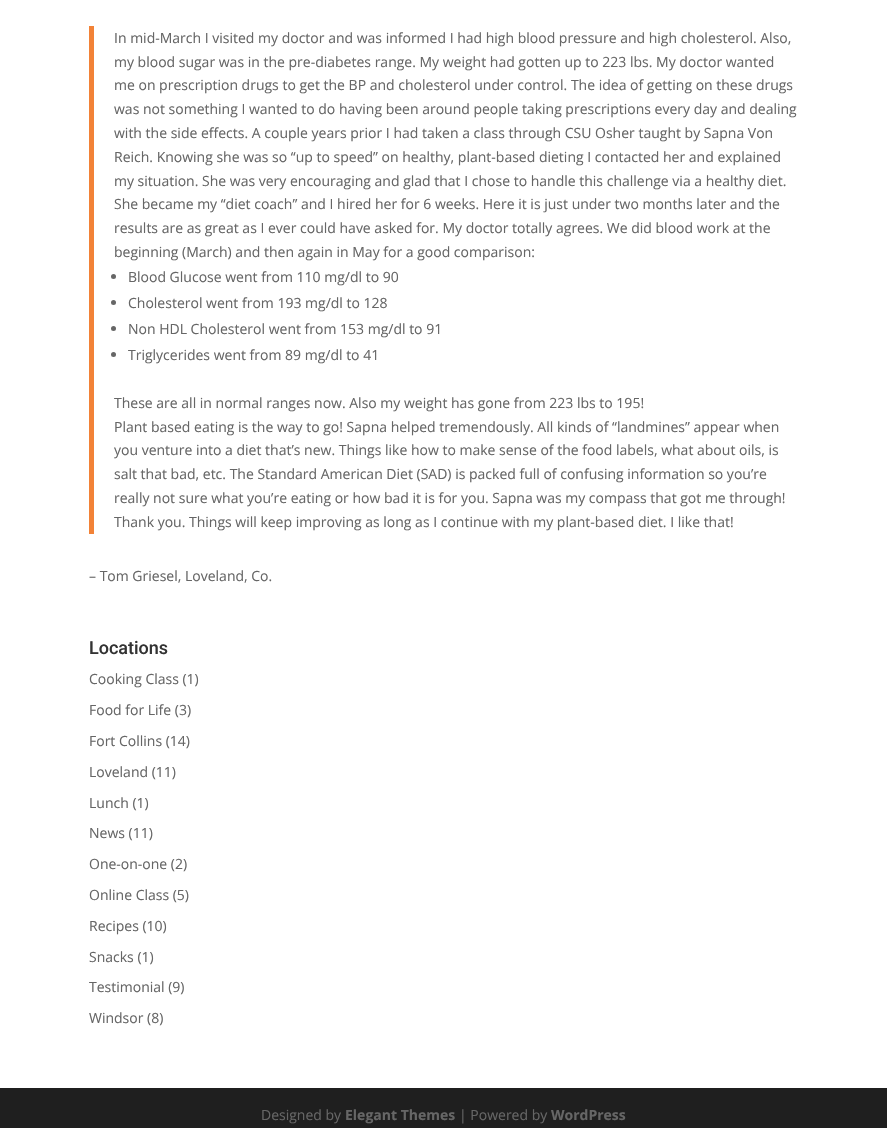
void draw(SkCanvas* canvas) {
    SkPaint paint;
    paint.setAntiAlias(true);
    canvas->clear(0xFFFFFFFF);
    paint.setColor(0xFFF28237);
    canvas->drawRect(SkRect::MakeXYWH(89, 26, 5, 508), paint);
    SkFont font1(fontMgr->matchFamilyStyle("Open Sans", SkFontStyle::Normal()), 14);
    font1.setSubpixel(true);
    paint.setColor(0xFF666666);
    canvas->drawString("In mid-March I visited my doctor and was informed I had high blood pressure and high cholesterol. Also,", 114, 43, font1, paint);
    canvas->drawString("my blood sugar was in the pre-diabetes range. My weight had gotten up to 223 lbs. My doctor wanted", 114, 67, font1, paint);
    canvas->drawString("me on prescription drugs to get the BP and cholesterol under control. The idea of getting on these drugs", 114, 90, font1, paint);
    canvas->drawString("was not something I wanted to do having been around people taking prescriptions every day and dealing", 114, 114, font1, paint);
    canvas->drawString("with the side effects. A couple years prior I had taken a class through CSU Osher taught by Sapna Von", 114, 138, font1, paint);
    canvas->drawString("Reich. Knowing she was so “up to speed” on healthy, plant-based dieting I contacted her and explained", 114, 162, font1, paint);
    canvas->drawString("my situation. She was very encouraging and glad that I chose to handle this challenge via a healthy diet.", 114, 186, font1, paint);
    canvas->drawString("She became my “diet coach” and I hired her for 6 weeks. Here it is just under two months later and the", 114, 209, font1, paint);
    canvas->drawString("results are as great as I ever could have asked for. My doctor totally agrees. We did blood work at the", 114, 233, font1, paint);
    canvas->drawString("beginning (March) and then again in May for a good comparison:", 114, 257, font1, paint);
    canvas->drawCircle(113.5f, 276.5f, 2.5f, paint);
    canvas->drawString("Blood Glucose went from 110 mg/dl to 90", 128, 282, font1, paint);
    canvas->drawCircle(113.5f, 302.5f, 2.5f, paint);
    canvas->drawString("Cholesterol went from 193 mg/dl to 128", 128, 308, font1, paint);
    canvas->drawCircle(113.5f, 328.5f, 2.5f, paint);
    canvas->drawString("Non HDL Cholesterol went from 153 mg/dl to 91", 128, 334, font1, paint);
    canvas->drawCircle(113.5f, 354.5f, 2.5f, paint);
    canvas->drawString("Triglycerides went from 89 mg/dl to 41", 128, 360, font1, paint);
    canvas->drawString("These are all in normal ranges now. Also my weight has gone from 223 lbs to 195!", 114, 408, font1, paint);
    canvas->drawString("Plant based eating is the way to go! Sapna helped tremendously. All kinds of “landmines” appear when", 114, 432, font1, paint);
    canvas->drawString("you venture into a diet that’s new. Things like how to make sense of the food labels, what about oils, is", 114, 455, font1, paint);
    canvas->drawString("salt that bad, etc. The Standard American Diet (SAD) is packed full of confusing information so you’re", 114, 479, font1, paint);
    canvas->drawString("really not sure what you’re eating or how bad it is for you. Sapna was my compass that got me through!", 114, 503, font1, paint);
    canvas->drawString("Thank you. Things will keep improving as long as I continue with my plant-based diet. I like that!", 114, 527, font1, paint);
    canvas->drawString("– Tom Griesel, Loveland, Co.", 89, 581, font1, paint);
    SkFont font2(fontMgr->matchFamilyStyle("Roboto", SkFontStyle(500, SkFontStyle::kNormal_Width, SkFontStyle::kUpright_Slant)), 18);
    font2.setSubpixel(true);
    paint.setColor(0xFF333333);
    canvas->drawString("Locations", 89, 654, font2, paint);
    paint.setColor(0xFF666666);
    canvas->drawString("Cooking Class (1)", 89, 684, font1, paint);
    canvas->drawString("Food for Life (3)", 89, 715, font1, paint);
    canvas->drawString("Fort Collins (14)", 89, 746, font1, paint);
    canvas->drawString("Loveland (11)", 89, 777, font1, paint);
    canvas->drawString("Lunch (1)", 89, 808, font1, paint);
    canvas->drawString("News (11)", 89, 838, font1, paint);
    canvas->drawString("One-on-one (2)", 89, 869, font1, paint);
    canvas->drawString("Online Class (5)", 89, 900, font1, paint);
    canvas->drawString("Recipes (10)", 89, 931, font1, paint);
    canvas->drawString("Snacks (1)", 89, 962, font1, paint);
    canvas->drawString("Testimonial (9)", 89, 992, font1, paint);
    canvas->drawString("Windsor (8)", 89, 1023, font1, paint);
    paint.setColor(0xFF1F1F1F);
    canvas->drawRect(SkRect::MakeXYWH(0, 1088, 887, 40), paint);
    paint.setColor(0xFF666666);
    canvas->drawString("Designed by", 261, 1120, font1, paint);
    SkFont font3(fontMgr->matchFamilyStyle("Open Sans", SkFontStyle::Bold()), 14);
    font3.setSubpixel(true);
    canvas->drawString("Elegant Themes", 345, 1120, font3, paint);
    canvas->drawString("| Powered by", 459, 1120, font1, paint);
    canvas->drawString("WordPress", 551, 1120, font3, paint);
}
